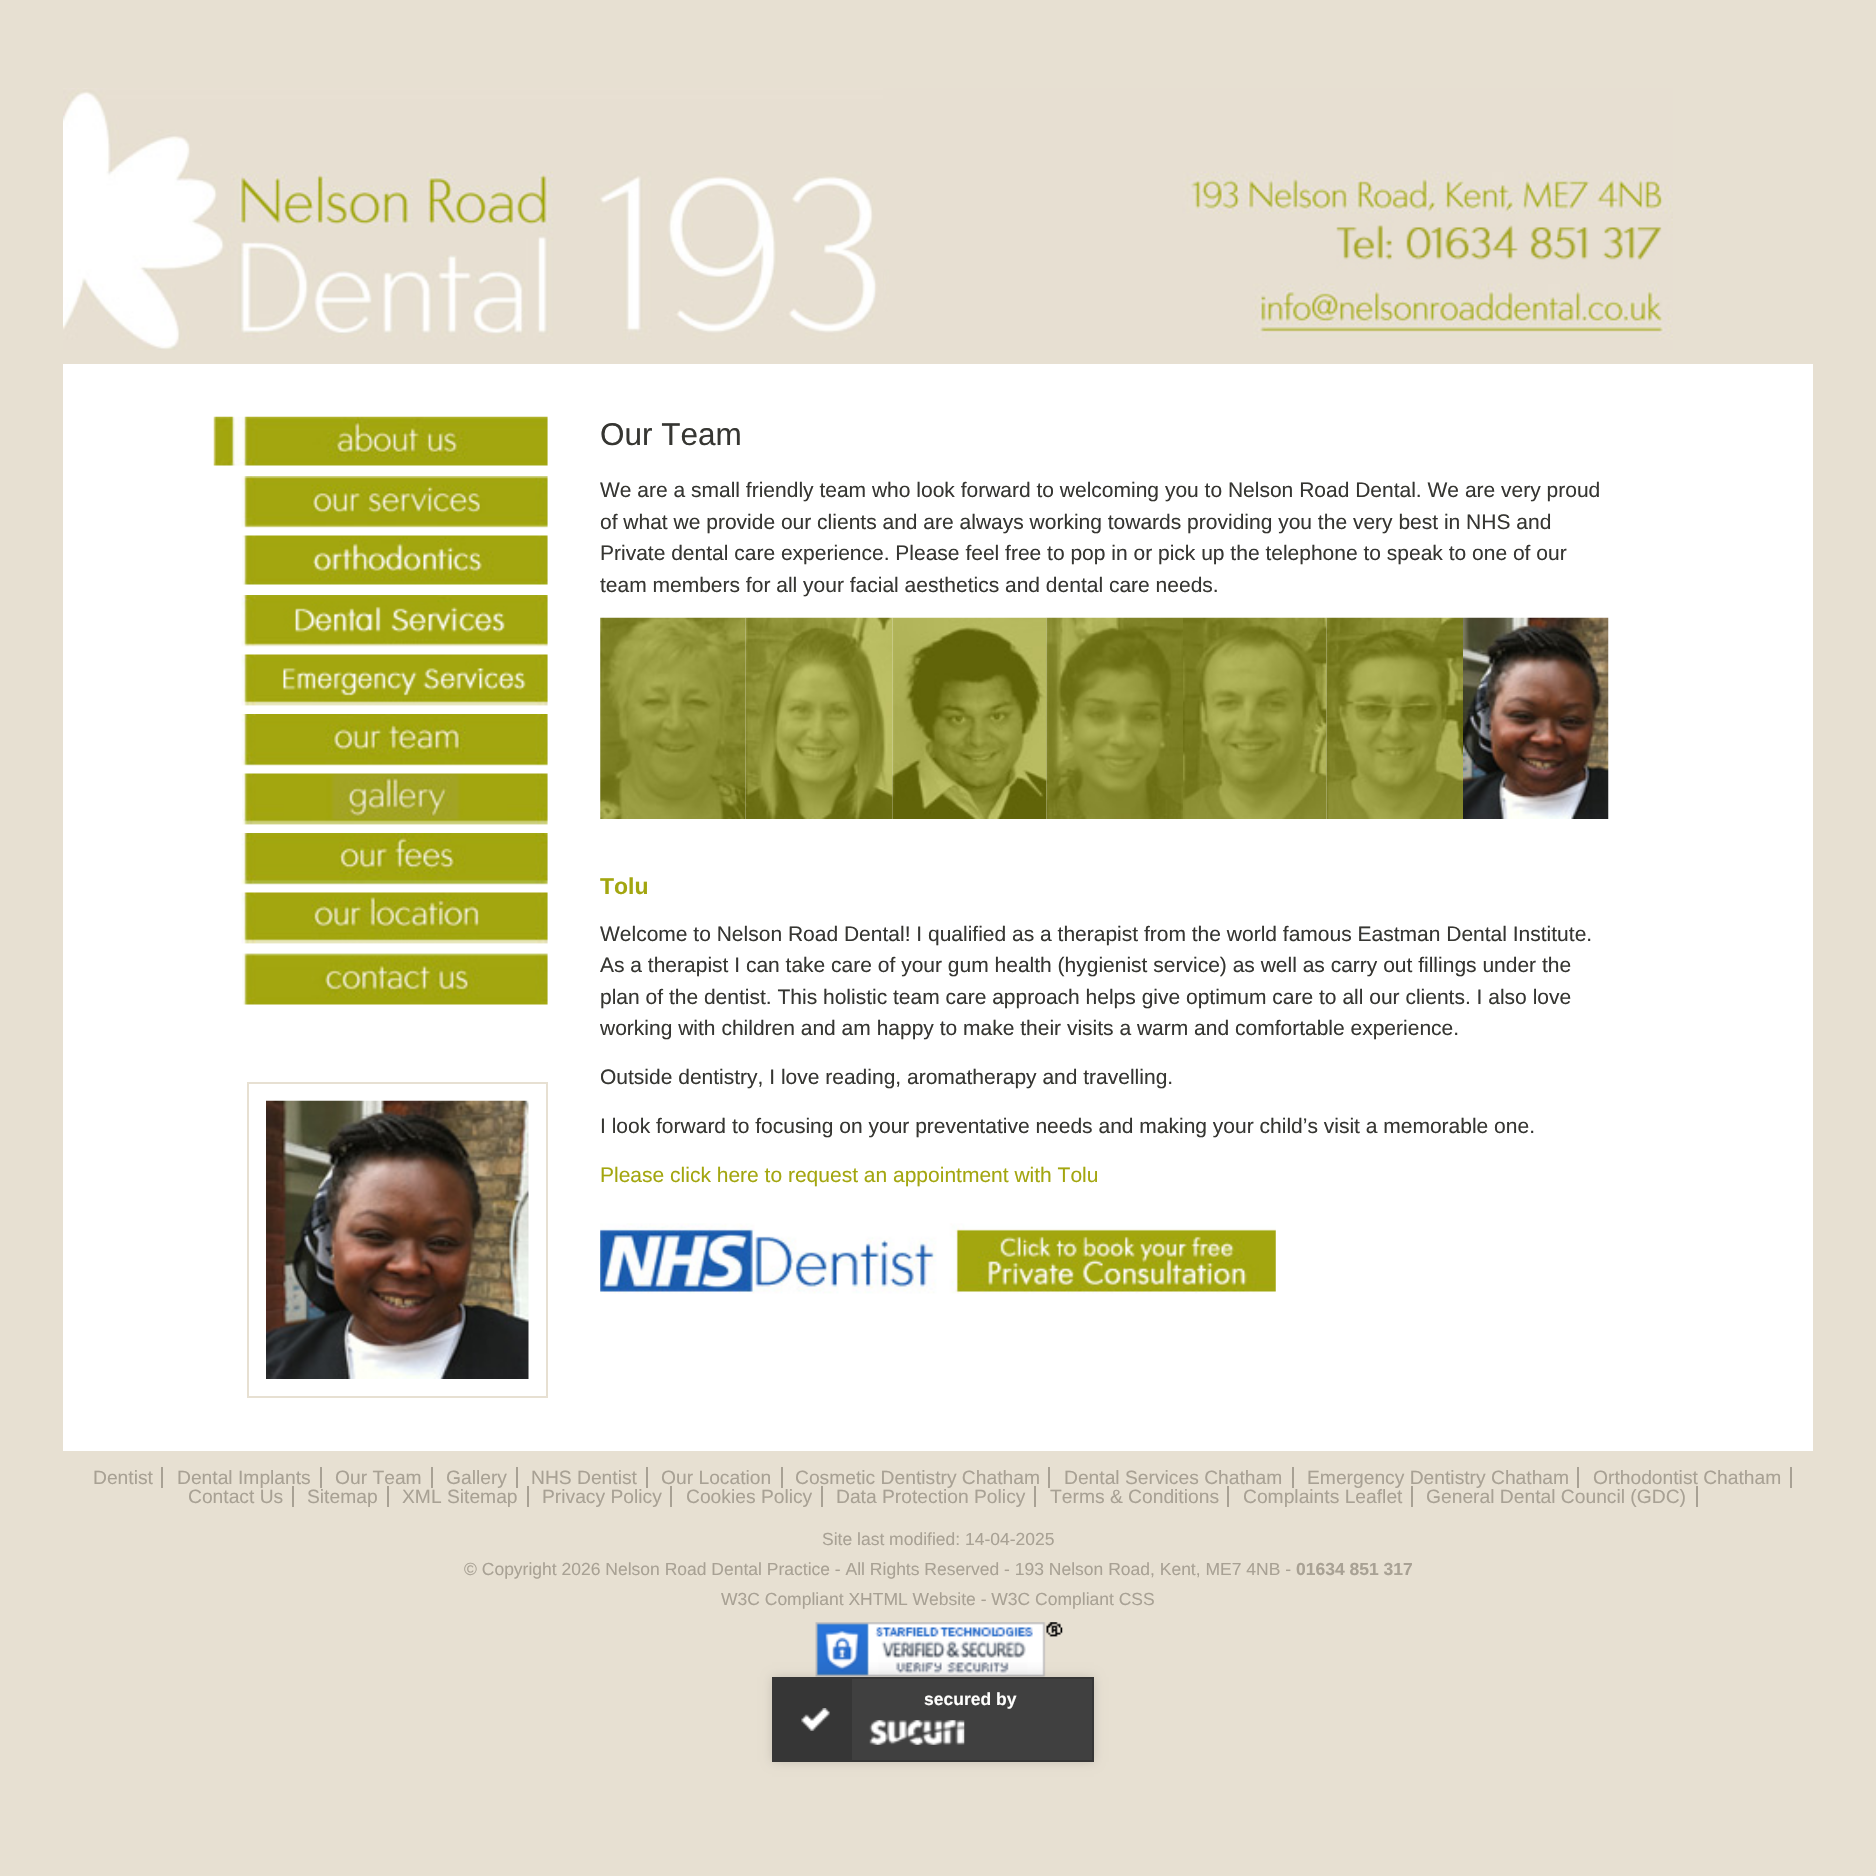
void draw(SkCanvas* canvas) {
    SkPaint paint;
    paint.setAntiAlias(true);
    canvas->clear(0xFFE7E0D2);
    canvas->drawImageRect(SkImages::DeferredFromEncodedData(SkData::MakeFromFileName("img1.png")), SkRect::MakeXYWH(883, 88, 790, 262), SkSamplingOptions());
    canvas->drawImageRect(SkImages::DeferredFromEncodedData(SkData::MakeFromFileName("img2.png")), SkRect::MakeXYWH(63, 88, 820, 262), SkSamplingOptions());
    paint.setColor(0xFFFFFFFF);
    canvas->drawRect(SkRect::MakeXYWH(63, 364, 1750, 1087), paint);
    canvas->drawImageRect(SkImages::DeferredFromEncodedData(SkData::MakeFromFileName("img3.png")), SkRect::MakeXYWH(213, 416, 335, 50), SkSamplingOptions());
    canvas->drawImageRect(SkImages::DeferredFromEncodedData(SkData::MakeFromFileName("img4.png")), SkRect::MakeXYWH(241, 476, 307, 52), SkSamplingOptions());
    canvas->drawImageRect(SkImages::DeferredFromEncodedData(SkData::MakeFromFileName("img5.png")), SkRect::MakeXYWH(242, 535, 306, 50), SkSamplingOptions());
    canvas->drawImageRect(SkImages::DeferredFromEncodedData(SkData::MakeFromFileName("img6.png")), SkRect::MakeXYWH(241, 595, 307, 52), SkSamplingOptions());
    canvas->drawImageRect(SkImages::DeferredFromEncodedData(SkData::MakeFromFileName("img7.png")), SkRect::MakeXYWH(241, 654, 307, 52), SkSamplingOptions());
    canvas->drawImageRect(SkImages::DeferredFromEncodedData(SkData::MakeFromFileName("img8.png")), SkRect::MakeXYWH(241, 714, 307, 52), SkSamplingOptions());
    canvas->drawImageRect(SkImages::DeferredFromEncodedData(SkData::MakeFromFileName("img9.png")), SkRect::MakeXYWH(242, 773, 306, 52), SkSamplingOptions());
    canvas->drawImageRect(SkImages::DeferredFromEncodedData(SkData::MakeFromFileName("img10.png")), SkRect::MakeXYWH(241, 833, 307, 52), SkSamplingOptions());
    canvas->drawImageRect(SkImages::DeferredFromEncodedData(SkData::MakeFromFileName("img11.png")), SkRect::MakeXYWH(241, 892, 307, 52), SkSamplingOptions());
    canvas->drawImageRect(SkImages::DeferredFromEncodedData(SkData::MakeFromFileName("img12.png")), SkRect::MakeXYWH(242, 953, 306, 52), SkSamplingOptions());
    paint.setStyle(SkPaint::kStroke_Style);
    paint.setStrokeWidth(2);
    paint.setColor(0xFFE7E0D2);
    canvas->drawRect(SkRect::MakeXYWH(248, 1083, 299, 314), paint);
    canvas->drawImageRect(SkImages::DeferredFromEncodedData(SkData::MakeFromFileName("img13.png")), SkRect::MakeXYWH(266, 1100, 263, 279), SkSamplingOptions());
    SkFont font1(fontMgr->matchFamilyStyle("Liberation Sans", SkFontStyle::Normal()), 31.5f);
    font1.setSubpixel(true);
    paint.setStyle(SkPaint::kFill_Style);
    paint.setColor(0xFF363632);
    canvas->drawString("Our Team", 600, 445, font1, paint);
    SkFont font2(fontMgr->matchFamilyStyle("Liberation Sans", SkFontStyle::Normal()), 21);
    font2.setSubpixel(true);
    canvas->drawString("We are a small friendly team who look forward to welcoming you to Nelson Road Dental. We are very proud", 600, 497, font2, paint);
    canvas->drawString("of what we provide our clients and are always working towards providing you the very best in NHS and", 600, 529, font2, paint);
    canvas->drawString("Private dental care experience. Please feel free to pop in or pick up the telephone to speak to one of our", 600, 560, font2, paint);
    canvas->drawString("team members for all your facial aesthetics and dental care needs.", 600, 592, font2, paint);
    canvas->drawImageRect(SkImages::DeferredFromEncodedData(SkData::MakeFromFileName("img14.png")), SkRect::MakeXYWH(600, 617, 146, 202), SkSamplingOptions());
    canvas->drawImageRect(SkImages::DeferredFromEncodedData(SkData::MakeFromFileName("img15.png")), SkRect::MakeXYWH(745, 617, 148, 202), SkSamplingOptions());
    canvas->drawImageRect(SkImages::DeferredFromEncodedData(SkData::MakeFromFileName("img16.png")), SkRect::MakeXYWH(892, 617, 155, 202), SkSamplingOptions());
    canvas->drawImageRect(SkImages::DeferredFromEncodedData(SkData::MakeFromFileName("img17.png")), SkRect::MakeXYWH(1046, 617, 137, 202), SkSamplingOptions());
    canvas->drawImageRect(SkImages::DeferredFromEncodedData(SkData::MakeFromFileName("img18.png")), SkRect::MakeXYWH(1183, 617, 144, 202), SkSamplingOptions());
    canvas->drawImageRect(SkImages::DeferredFromEncodedData(SkData::MakeFromFileName("img19.png")), SkRect::MakeXYWH(1326, 617, 137, 202), SkSamplingOptions());
    canvas->drawImageRect(SkImages::DeferredFromEncodedData(SkData::MakeFromFileName("img20.png")), SkRect::MakeXYWH(1463, 617, 146, 202), SkSamplingOptions());
    SkFont font3(fontMgr->matchFamilyStyle("Liberation Sans", SkFontStyle::Bold()), 23);
    font3.setSubpixel(true);
    paint.setColor(0xFFA3A60F);
    canvas->drawString("Tolu", 600, 894, font3, paint);
    paint.setColor(0xFF363632);
    canvas->drawString("Welcome to Nelson Road Dental! I qualified as a therapist from the world famous Eastman Dental Institute.", 600, 941, font2, paint);
    canvas->drawString("As a therapist I can take care of your gum health (hygienist service) as well as carry out fillings under the", 600, 972, font2, paint);
    canvas->drawString("plan of the dentist. This holistic team care approach helps give optimum care to all our clients. I also love", 600, 1004, font2, paint);
    canvas->drawString("working with children and am happy to make their visits a warm and comfortable experience.", 600, 1035, font2, paint);
    canvas->drawString("Outside dentistry, I love reading, aromatherapy and travelling.", 600, 1084, font2, paint);
    canvas->drawString("I look forward to focusing on your preventative needs and making your child’s visit a memorable one.", 600, 1133, font2, paint);
    paint.setColor(0xFFA3A60F);
    canvas->drawString("Please click here to request an appointment with Tolu", 600, 1182, font2, paint);
    canvas->drawImageRect(SkImages::DeferredFromEncodedData(SkData::MakeFromFileName("img21.png")), SkRect::MakeXYWH(600, 1223, 676, 71), SkSamplingOptions());
    SkFont font4(fontMgr->matchFamilyStyle("Liberation Sans", SkFontStyle::Normal()), 19.25f);
    font4.setSubpixel(true);
    paint.setColor(0xFFA8A194);
    canvas->drawString("Dentist", 93, 1484, font4, paint);
    canvas->drawRect(SkRect::MakeXYWH(161, 1467, 2, 21), paint);
    canvas->drawString("Dental Implants", 177, 1484, font4, paint);
    canvas->drawRect(SkRect::MakeXYWH(320, 1467, 2, 21), paint);
    canvas->drawString("Our Team", 335, 1484, font4, paint);
    canvas->drawRect(SkRect::MakeXYWH(431, 1467, 2, 21), paint);
    canvas->drawString("Gallery", 446, 1484, font4, paint);
    canvas->drawRect(SkRect::MakeXYWH(516, 1467, 2, 21), paint);
    canvas->drawString("NHS Dentist", 531, 1484, font4, paint);
    canvas->drawRect(SkRect::MakeXYWH(646, 1467, 2, 21), paint);
    canvas->drawString("Our Location", 661, 1484, font4, paint);
    canvas->drawRect(SkRect::MakeXYWH(781, 1467, 2, 21), paint);
    canvas->drawString("Cosmetic Dentistry Chatham", 795, 1484, font4, paint);
    canvas->drawRect(SkRect::MakeXYWH(1048, 1467, 2, 21), paint);
    canvas->drawString("Dental Services Chatham", 1064, 1484, font4, paint);
    canvas->drawRect(SkRect::MakeXYWH(1292, 1467, 2, 21), paint);
    canvas->drawString("Emergency Dentistry Chatham", 1307, 1484, font4, paint);
    canvas->drawRect(SkRect::MakeXYWH(1577, 1467, 2, 21), paint);
    canvas->drawString("Orthodontist Chatham", 1593, 1484, font4, paint);
    canvas->drawRect(SkRect::MakeXYWH(1790, 1467, 2, 21), paint);
    canvas->drawString("Contact Us", 188, 1503, font4, paint);
    canvas->drawRect(SkRect::MakeXYWH(292, 1486, 2, 21), paint);
    canvas->drawString("Sitemap", 307, 1503, font4, paint);
    canvas->drawRect(SkRect::MakeXYWH(387, 1486, 2, 21), paint);
    canvas->drawString("XML Sitemap", 402, 1503, font4, paint);
    canvas->drawRect(SkRect::MakeXYWH(527, 1486, 2, 21), paint);
    canvas->drawString("Privacy Policy", 542, 1503, font4, paint);
    canvas->drawRect(SkRect::MakeXYWH(670, 1486, 2, 21), paint);
    canvas->drawString("Cookies Policy", 686, 1503, font4, paint);
    canvas->drawRect(SkRect::MakeXYWH(821, 1486, 2, 21), paint);
    canvas->drawString("Data Protection Policy", 836, 1503, font4, paint);
    canvas->drawRect(SkRect::MakeXYWH(1034, 1486, 2, 21), paint);
    canvas->drawString("Terms & Conditions", 1050, 1503, font4, paint);
    canvas->drawRect(SkRect::MakeXYWH(1227, 1486, 2, 21), paint);
    canvas->drawString("Complaints Leaflet", 1243, 1503, font4, paint);
    canvas->drawRect(SkRect::MakeXYWH(1411, 1486, 2, 21), paint);
    canvas->drawString("General Dental Council (GDC)", 1426, 1503, font4, paint);
    canvas->drawRect(SkRect::MakeXYWH(1696, 1486, 2, 21), paint);
    SkFont font5(fontMgr->matchFamilyStyle("Liberation Sans", SkFontStyle::Normal()), 17.5f);
    font5.setSubpixel(true);
    canvas->drawString("Site last modified: 14-04-2025", 822, 1545, font5, paint);
    canvas->drawString("© Copyright 2026 Nelson Road Dental Practice - All Rights Reserved - 193 Nelson Road, Kent, ME7 4NB -", 464, 1575, font5, paint);
    SkFont font6(fontMgr->matchFamilyStyle("Liberation Sans", SkFontStyle::Bold()), 17.5f);
    font6.setSubpixel(true);
    canvas->drawString("01634 851 317", 1296, 1575, font6, paint);
    canvas->drawString("W3C Compliant XHTML Website - W3C Compliant CSS", 721, 1605, font5, paint);
    canvas->drawImageRect(SkImages::DeferredFromEncodedData(SkData::MakeFromFileName("img22.png")), SkRect::MakeXYWH(815, 1622, 248, 55), SkSamplingOptions());
    paint.setColor(0x24000000);
    paint.setMaskFilter(SkMaskFilter::MakeBlur(kNormal_SkBlurStyle, 5));
    canvas->drawRect(SkRect::MakeXYWH(772, 1677, 322, 85), paint);
    paint.setMaskFilter(nullptr);
    paint.setColor(0xFF404040);
    canvas->drawRect(SkRect::MakeXYWH(852, 1679, 240, 81), paint);
    paint.setStyle(SkPaint::kStroke_Style);
    paint.setColor(0xFF363636);
    canvas->drawRect(SkRect::MakeXYWH(773, 1678, 320, 83), paint);
    paint.setStyle(SkPaint::kFill_Style);
    canvas->drawRect(SkRect::MakeXYWH(774, 1679, 78, 81), paint);
    canvas->drawImageRect(SkImages::DeferredFromEncodedData(SkData::MakeFromFileName("img23.png")), SkRect::MakeXYWH(801, 1708, 29, 23), SkSamplingOptions());
    paint.setColor(0xFFFEFEFD);
    canvas->drawString("secured by", 924, 1705, font6, paint);
    canvas->drawImageRect(SkImages::DeferredFromEncodedData(SkData::MakeFromFileName("img24.png")), SkRect::MakeXYWH(869, 1720, 96, 25), SkSamplingOptions());
}
